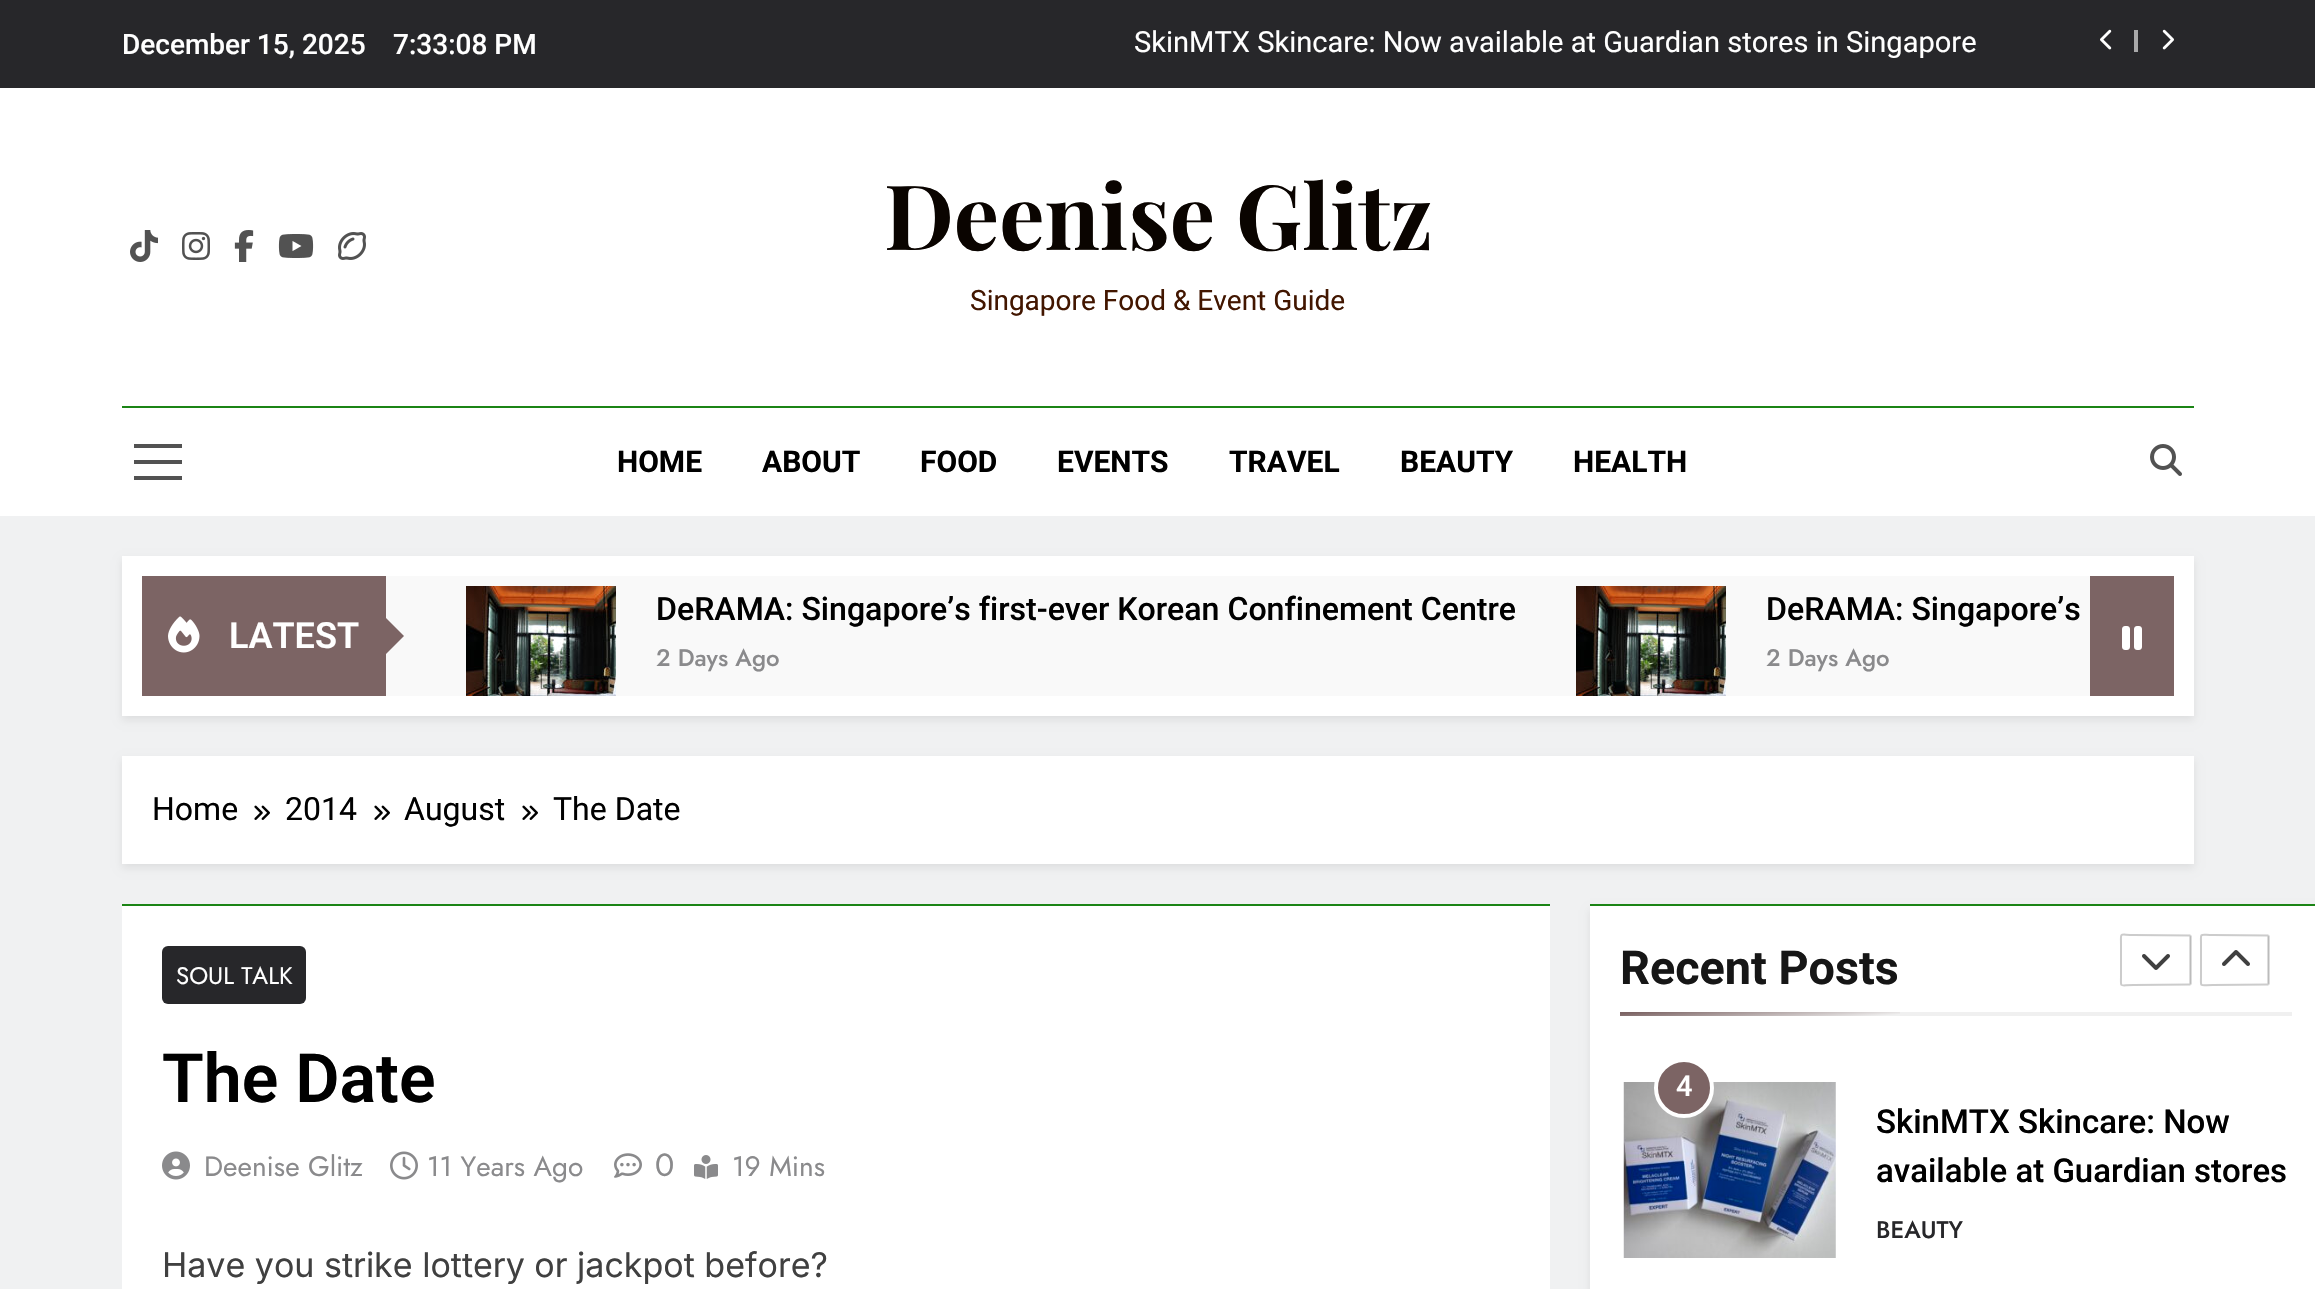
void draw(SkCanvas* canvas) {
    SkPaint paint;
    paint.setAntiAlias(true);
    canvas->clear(0xFFF0F1F2);
    paint.setColor(0xFF27272A);
    canvas->drawRect(SkRect::MakeXYWH(0, 0, 2315, 88), paint);
    SkFont font1(fontMgr->matchFamilyStyle("Roboto", SkFontStyle(500, SkFontStyle::kNormal_Width, SkFontStyle::kUpright_Slant)), 28);
    font1.setSubpixel(true);
    paint.setColor(0xFFFFFFFF);
    canvas->drawString("December 15, 2025", 122, 54, font1, paint);
    canvas->drawString("7:33:08 PM", 393, 54, font1, paint);
    SkFont font2(fontMgr->matchFamilyStyle("Roboto", SkFontStyle::Normal()), 29.05f);
    font2.setSubpixel(true);
    canvas->drawString("SkinMTX Skincare: Now available at Guardian stores in Singapore", 1134, 52, font2, paint);
    canvas->drawImageRect(SkImages::DeferredFromEncodedData(SkData::MakeFromFileName("img1.png")), SkRect::MakeXYWH(2100, 29, 12, 21), SkSamplingOptions());
    paint.setColor(0xFFA9A9AA);
    canvas->drawRect(SkRect::MakeXYWH(2134, 30, 4, 22), paint);
    canvas->drawImageRect(SkImages::DeferredFromEncodedData(SkData::MakeFromFileName("img2.png")), SkRect::MakeXYWH(2162, 29, 12, 21), SkSamplingOptions());
    paint.setColor(0xFFFFFFFF);
    canvas->drawRect(SkRect::MakeXYWH(0, 88, 2315, 428), paint);
    canvas->drawImageRect(SkImages::DeferredFromEncodedData(SkData::MakeFromFileName("img3.png")), SkRect::MakeXYWH(130, 230, 28, 32), SkSamplingOptions());
    canvas->drawImageRect(SkImages::DeferredFromEncodedData(SkData::MakeFromFileName("img4.png")), SkRect::MakeXYWH(182, 232, 28, 28), SkSamplingOptions());
    canvas->drawImageRect(SkImages::DeferredFromEncodedData(SkData::MakeFromFileName("img5.png")), SkRect::MakeXYWH(234, 230, 20, 32), SkSamplingOptions());
    canvas->drawImageRect(SkImages::DeferredFromEncodedData(SkData::MakeFromFileName("img6.png")), SkRect::MakeXYWH(278, 234, 36, 24), SkSamplingOptions());
    canvas->drawImageRect(SkImages::DeferredFromEncodedData(SkData::MakeFromFileName("img7.png")), SkRect::MakeXYWH(338, 232, 28, 28), SkSamplingOptions());
    SkFont font3(fontMgr->matchFamilyStyle("Playfair Display", SkFontStyle::Bold()), 90);
    font3.setSubpixel(true);
    paint.setColor(0xFF0A0400);
    canvas->drawString("Deenise Glitz", 884, 250, font3, paint);
    SkFont font4(fontMgr->matchFamilyStyle("Roboto", SkFontStyle::Normal()), 28);
    font4.setSubpixel(true);
    paint.setColor(0xFF421600);
    canvas->drawString("Singapore Food & Event Guide", 970, 310, font4, paint);
    paint.setColor(0xFF1B8415);
    canvas->drawRect(SkRect::MakeXYWH(122, 406, 2072, 2), paint);
    paint.setColor(0xFF525252);
    canvas->drawRect(SkRect::MakeXYWH(134, 444, 48, 4), paint);
    canvas->drawRect(SkRect::MakeXYWH(134, 460, 48, 4), paint);
    canvas->drawRect(SkRect::MakeXYWH(134, 476, 48, 4), paint);
    SkFont font5(fontMgr->matchFamilyStyle("Roboto", SkFontStyle::Bold()), 30);
    font5.setSubpixel(true);
    paint.setColor(0xFF000000);
    canvas->drawString("HOME", 617, 472, font5, paint);
    canvas->drawString("ABOUT", 762, 472, font5, paint);
    canvas->drawString("FOOD", 920, 472, font5, paint);
    canvas->drawString("EVENTS", 1057, 472, font5, paint);
    canvas->drawString("TRAVEL", 1229, 472, font5, paint);
    canvas->drawString("BEAUTY", 1400, 472, font5, paint);
    canvas->drawString("HEALTH", 1573, 472, font5, paint);
    canvas->drawImageRect(SkImages::DeferredFromEncodedData(SkData::MakeFromFileName("img8.png")), SkRect::MakeXYWH(2150, 444, 32, 32), SkSamplingOptions());
    paint.setColor(0x14000000);
    paint.setMaskFilter(SkMaskFilter::MakeBlur(kNormal_SkBlurStyle, 4));
    canvas->drawRect(SkRect::MakeXYWH(122, 560, 2072, 160), paint);
    paint.setMaskFilter(nullptr);
    paint.setColor(0xFFFFFFFF);
    canvas->drawRect(SkRect::MakeXYWH(122, 556, 2072, 160), paint);
    paint.setColor(0xFF7C6464);
    canvas->drawRect(SkRect::MakeXYWH(142, 576, 244, 120), paint);
    canvas->drawImageRect(SkImages::DeferredFromEncodedData(SkData::MakeFromFileName("img9.png")), SkRect::MakeXYWH(168, 616, 32, 37), SkSamplingOptions());
    SkFont font6(fontMgr->matchFamilyStyle("Roboto", SkFontStyle(600, SkFontStyle::kNormal_Width, SkFontStyle::kUpright_Slant)), 36);
    font6.setSubpixel(true);
    paint.setColor(0xFFFFFFFF);
    canvas->drawString("LATEST", 229, 648, font6, paint);
    paint.setColor(0xFFF9F9F9);
    canvas->drawRect(SkRect::MakeXYWH(386, 576, 1704, 120), paint);
    paint.setColor(0xFF7C6464);
    canvas->drawPath(SkPathBuilder().moveTo(384, 656).lineTo(384, 616).lineTo(404, 636).close().detach(), paint);
    canvas->drawImageRect(SkImages::DeferredFromEncodedData(SkData::MakeFromFileName("img10.png")), SkRect::MakeXYWH(466, 586, 150, 110), SkSamplingOptions());
    SkFont font7(fontMgr->matchFamilyStyle("Roboto", SkFontStyle(500, SkFontStyle::kNormal_Width, SkFontStyle::kUpright_Slant)), 32.1f);
    font7.setSubpixel(true);
    paint.setColor(0xFF000000);
    canvas->drawString("DeRAMA: Singapore’s first-ever Korean Confinement Centre", 656, 620, font7, paint);
    SkFont font8(fontMgr->matchFamilyStyle("Jost", SkFontStyle(500, SkFontStyle::kNormal_Width, SkFontStyle::kUpright_Slant)), 24);
    font8.setSubpixel(true);
    paint.setColor(0xFF8A8A8C);
    canvas->drawString("2 Days Ago", 656, 666, font8, paint);
    canvas->drawImageRect(SkImages::DeferredFromEncodedData(SkData::MakeFromFileName("img10.png")), SkRect::MakeXYWH(1576, 586, 150, 110), SkSamplingOptions());
    paint.setColor(0xFF000000);
    canvas->drawString("DeRAMA: Singapore’s", 1766, 620, font7, paint);
    paint.setColor(0xFF8A8A8C);
    canvas->drawString("2 Days Ago", 1766, 666, font8, paint);
    paint.setColor(0xFF7C6464);
    canvas->drawRect(SkRect::MakeXYWH(2090, 576, 84, 120), paint);
    canvas->drawImageRect(SkImages::DeferredFromEncodedData(SkData::MakeFromFileName("img11.png")), SkRect::MakeXYWH(2122, 626, 20, 24), SkSamplingOptions());
    paint.setColor(0x14000000);
    paint.setMaskFilter(SkMaskFilter::MakeBlur(kNormal_SkBlurStyle, 4));
    canvas->drawRect(SkRect::MakeXYWH(122, 760, 2072, 108), paint);
    paint.setMaskFilter(nullptr);
    paint.setColor(0xFFFFFFFF);
    canvas->drawRect(SkRect::MakeXYWH(122, 756, 2072, 108), paint);
    SkFont font9(fontMgr->matchFamilyStyle("Roboto", SkFontStyle::Normal()), 32);
    font9.setSubpixel(true);
    paint.setColor(0xFF000000);
    canvas->drawString("Home", 152, 820, font9, paint);
    canvas->drawImageRect(SkImages::DeferredFromEncodedData(SkData::MakeFromFileName("img12.png")), SkRect::MakeXYWH(254, 805, 16, 15), SkSamplingOptions());
    canvas->drawString("2014", 285, 820, font9, paint);
    canvas->drawImageRect(SkImages::DeferredFromEncodedData(SkData::MakeFromFileName("img12.png")), SkRect::MakeXYWH(374, 805, 16, 15), SkSamplingOptions());
    canvas->drawString("August", 404, 820, font9, paint);
    canvas->drawImageRect(SkImages::DeferredFromEncodedData(SkData::MakeFromFileName("img12.png")), SkRect::MakeXYWH(522, 805, 16, 15), SkSamplingOptions());
    canvas->drawString("The Date", 553, 820, font9, paint);
    paint.setColor(0xFFFFFFFF);
    canvas->drawRect(SkRect::MakeXYWH(122, 906, 1428, 383), paint);
    paint.setColor(0xFF1B8415);
    canvas->drawRect(SkRect::MakeXYWH(122, 904, 1428, 2), paint);
    paint.setColor(0xFF27272A);
    canvas->drawRoundRect(SkRect::MakeXYWH(162, 946, 144, 58), 6, 6, paint);
    SkFont font10(fontMgr->matchFamilyStyle("Jost", SkFontStyle::Normal()), 24);
    font10.setSubpixel(true);
    paint.setColor(0xFFFFFFFF);
    canvas->drawString("SOUL TALK", 176, 984, font10, paint);
    SkFont font11(fontMgr->matchFamilyStyle("Roboto", SkFontStyle(600, SkFontStyle::kNormal_Width, SkFontStyle::kUpright_Slant)), 68);
    font11.setSubpixel(true);
    paint.setColor(0xFF000000);
    canvas->drawString("The Date", 162, 1102, font11, paint);
    canvas->drawImageRect(SkImages::DeferredFromEncodedData(SkData::MakeFromFileName("img13.png")), SkRect::MakeXYWH(162, 1151, 28, 29), SkSamplingOptions());
    SkFont font12(fontMgr->matchFamilyStyle("Jost", SkFontStyle::Normal()), 28);
    font12.setSubpixel(true);
    paint.setColor(0xFF8A8A8C);
    canvas->drawString("Deenise Glitz", 204, 1176, font12, paint);
    canvas->drawImageRect(SkImages::DeferredFromEncodedData(SkData::MakeFromFileName("img14.png")), SkRect::MakeXYWH(390, 1151, 28, 29), SkSamplingOptions());
    canvas->drawString("11 Years Ago", 427, 1176, font12, paint);
    canvas->drawImageRect(SkImages::DeferredFromEncodedData(SkData::MakeFromFileName("img15.png")), SkRect::MakeXYWH(614, 1153, 28, 25), SkSamplingOptions());
    SkFont font13(fontMgr->matchFamilyStyle("Jost", SkFontStyle::Normal()), 32);
    font13.setSubpixel(true);
    canvas->drawString("0", 655, 1176, font13, paint);
    canvas->drawImageRect(SkImages::DeferredFromEncodedData(SkData::MakeFromFileName("img16.png")), SkRect::MakeXYWH(694, 1155, 24, 24), SkSamplingOptions());
    canvas->drawString("19 Mins", 732, 1176, font12, paint);
    SkFont font14(fontMgr->matchFamilyStyle("Inter", SkFontStyle::Normal()), 34);
    font14.setSubpixel(true);
    paint.setColor(0xFF404040);
    canvas->drawString("Have you strike lottery or jackpot before?", 162, 1277, font14, paint);
    paint.setColor(0x14000000);
    paint.setMaskFilter(SkMaskFilter::MakeBlur(kNormal_SkBlurStyle, 4));
    canvas->drawRect(SkRect::MakeXYWH(1590, 910, 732, 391), paint);
    paint.setMaskFilter(nullptr);
    paint.setColor(0xFFFFFFFF);
    canvas->drawRect(SkRect::MakeXYWH(1590, 906, 725, 383), paint);
    paint.setColor(0xFF1B8415);
    canvas->drawRect(SkRect::MakeXYWH(1590, 904, 725, 2), paint);
    paint.setColor(0xFFF0F0F0);
    canvas->drawRect(SkRect::MakeXYWH(1900, 1012, 392, 4), paint);
    SkFont font15(fontMgr->matchFamilyStyle("Roboto", SkFontStyle::Bold()), 46.75f);
    font15.setSubpixel(true);
    paint.setColor(0xFF161616);
    canvas->drawString("Recent Posts", 1620, 984, font15, paint);
    {
        const SkColor colors[] = {0xFF7C6464, 0xFFF0F0F0};
        const float stops[] = {0, 1};
        const SkPoint ends[] = {{1759, 1002}, {1761, 1026}};
        paint.setShader(SkGradientShader::MakeLinear(ends, colors, stops, 2, SkTileMode::kClamp));
        paint.setAlpha(255);
    }
    canvas->drawRect(SkRect::MakeXYWH(1620, 1012, 280, 4), paint);
    paint.setStyle(SkPaint::kStroke_Style);
    paint.setStrokeWidth(2);
    paint.setShader(nullptr);
    paint.setColor(0xFFBBBBBB);
    canvas->drawPath(SkPathBuilder().moveTo(2190.5f, 935.5f).lineTo(2190.5f, 984.5f).detach(), paint);
    paint.setColor(0xFFCCCCCC);
    canvas->drawPath(SkPathBuilder().moveTo(2190.5f, 984.5f).lineTo(2133.5f, 985).cubicTo(2119, 985, 2121, 988.5f, 2121, 976).lineTo(2121, 944).cubicTo(2121, 931.5f, 2119, 935, 2133.5f, 935).lineTo(2190.5f, 935.5f).detach(), paint);
    canvas->drawImageRect(SkImages::DeferredFromEncodedData(SkData::MakeFromFileName("img17.png")), SkRect::MakeXYWH(2142, 954, 28, 16), SkSamplingOptions());
    paint.setColor(0xFFBBBBBB);
    canvas->drawPath(SkPathBuilder().moveTo(2268.5f, 935.5f).lineTo(2268.5f, 984.5f).detach(), paint);
    paint.setColor(0xFFCCCCCC);
    canvas->drawPath(SkPathBuilder().moveTo(2268.5f, 984.5f).lineTo(2213, 985).cubicTo(2199, 985, 2201, 988, 2201, 976).lineTo(2201, 944).cubicTo(2201, 932, 2199, 935, 2213, 935).lineTo(2268.5f, 935.5f).detach(), paint);
    canvas->drawImageRect(SkImages::DeferredFromEncodedData(SkData::MakeFromFileName("img18.png")), SkRect::MakeXYWH(2222, 950, 28, 16), SkSamplingOptions());
    canvas->drawImageRect(SkImages::DeferredFromEncodedData(SkData::MakeFromFileName("img19.png")), SkRect::MakeXYWH(1623, 1082, 213, 176), SkSamplingOptions());
    paint.setStyle(SkPaint::kFill_Style);
    paint.setColor(0xFF7C6464);
    canvas->drawCircle(1684, 1088, 28, paint);
    paint.setStyle(SkPaint::kStroke_Style);
    paint.setStrokeWidth(4);
    paint.setColor(0xFFFFFFFF);
    canvas->drawCircle(1684, 1088, 28, paint);
    SkFont font16(fontMgr->matchFamilyStyle("Roboto", SkFontStyle(500, SkFontStyle::kNormal_Width, SkFontStyle::kUpright_Slant)), 29);
    font16.setSubpixel(true);
    paint.setStyle(SkPaint::kFill_Style);
    canvas->drawString("4", 1676, 1096, font16, paint);
    SkFont font17(fontMgr->matchFamilyStyle("Roboto", SkFontStyle(500, SkFontStyle::kNormal_Width, SkFontStyle::kUpright_Slant)), 33);
    font17.setSubpixel(true);
    paint.setColor(0xFF000000);
    canvas->drawString("SkinMTX Skincare: Now", 1876, 1133, font17, paint);
    canvas->drawString("available at Guardian stores", 1876, 1182, font17, paint);
    paint.setColor(0xFF27272A);
    canvas->drawString("BEAUTY", 1876, 1238, font8, paint);
}
